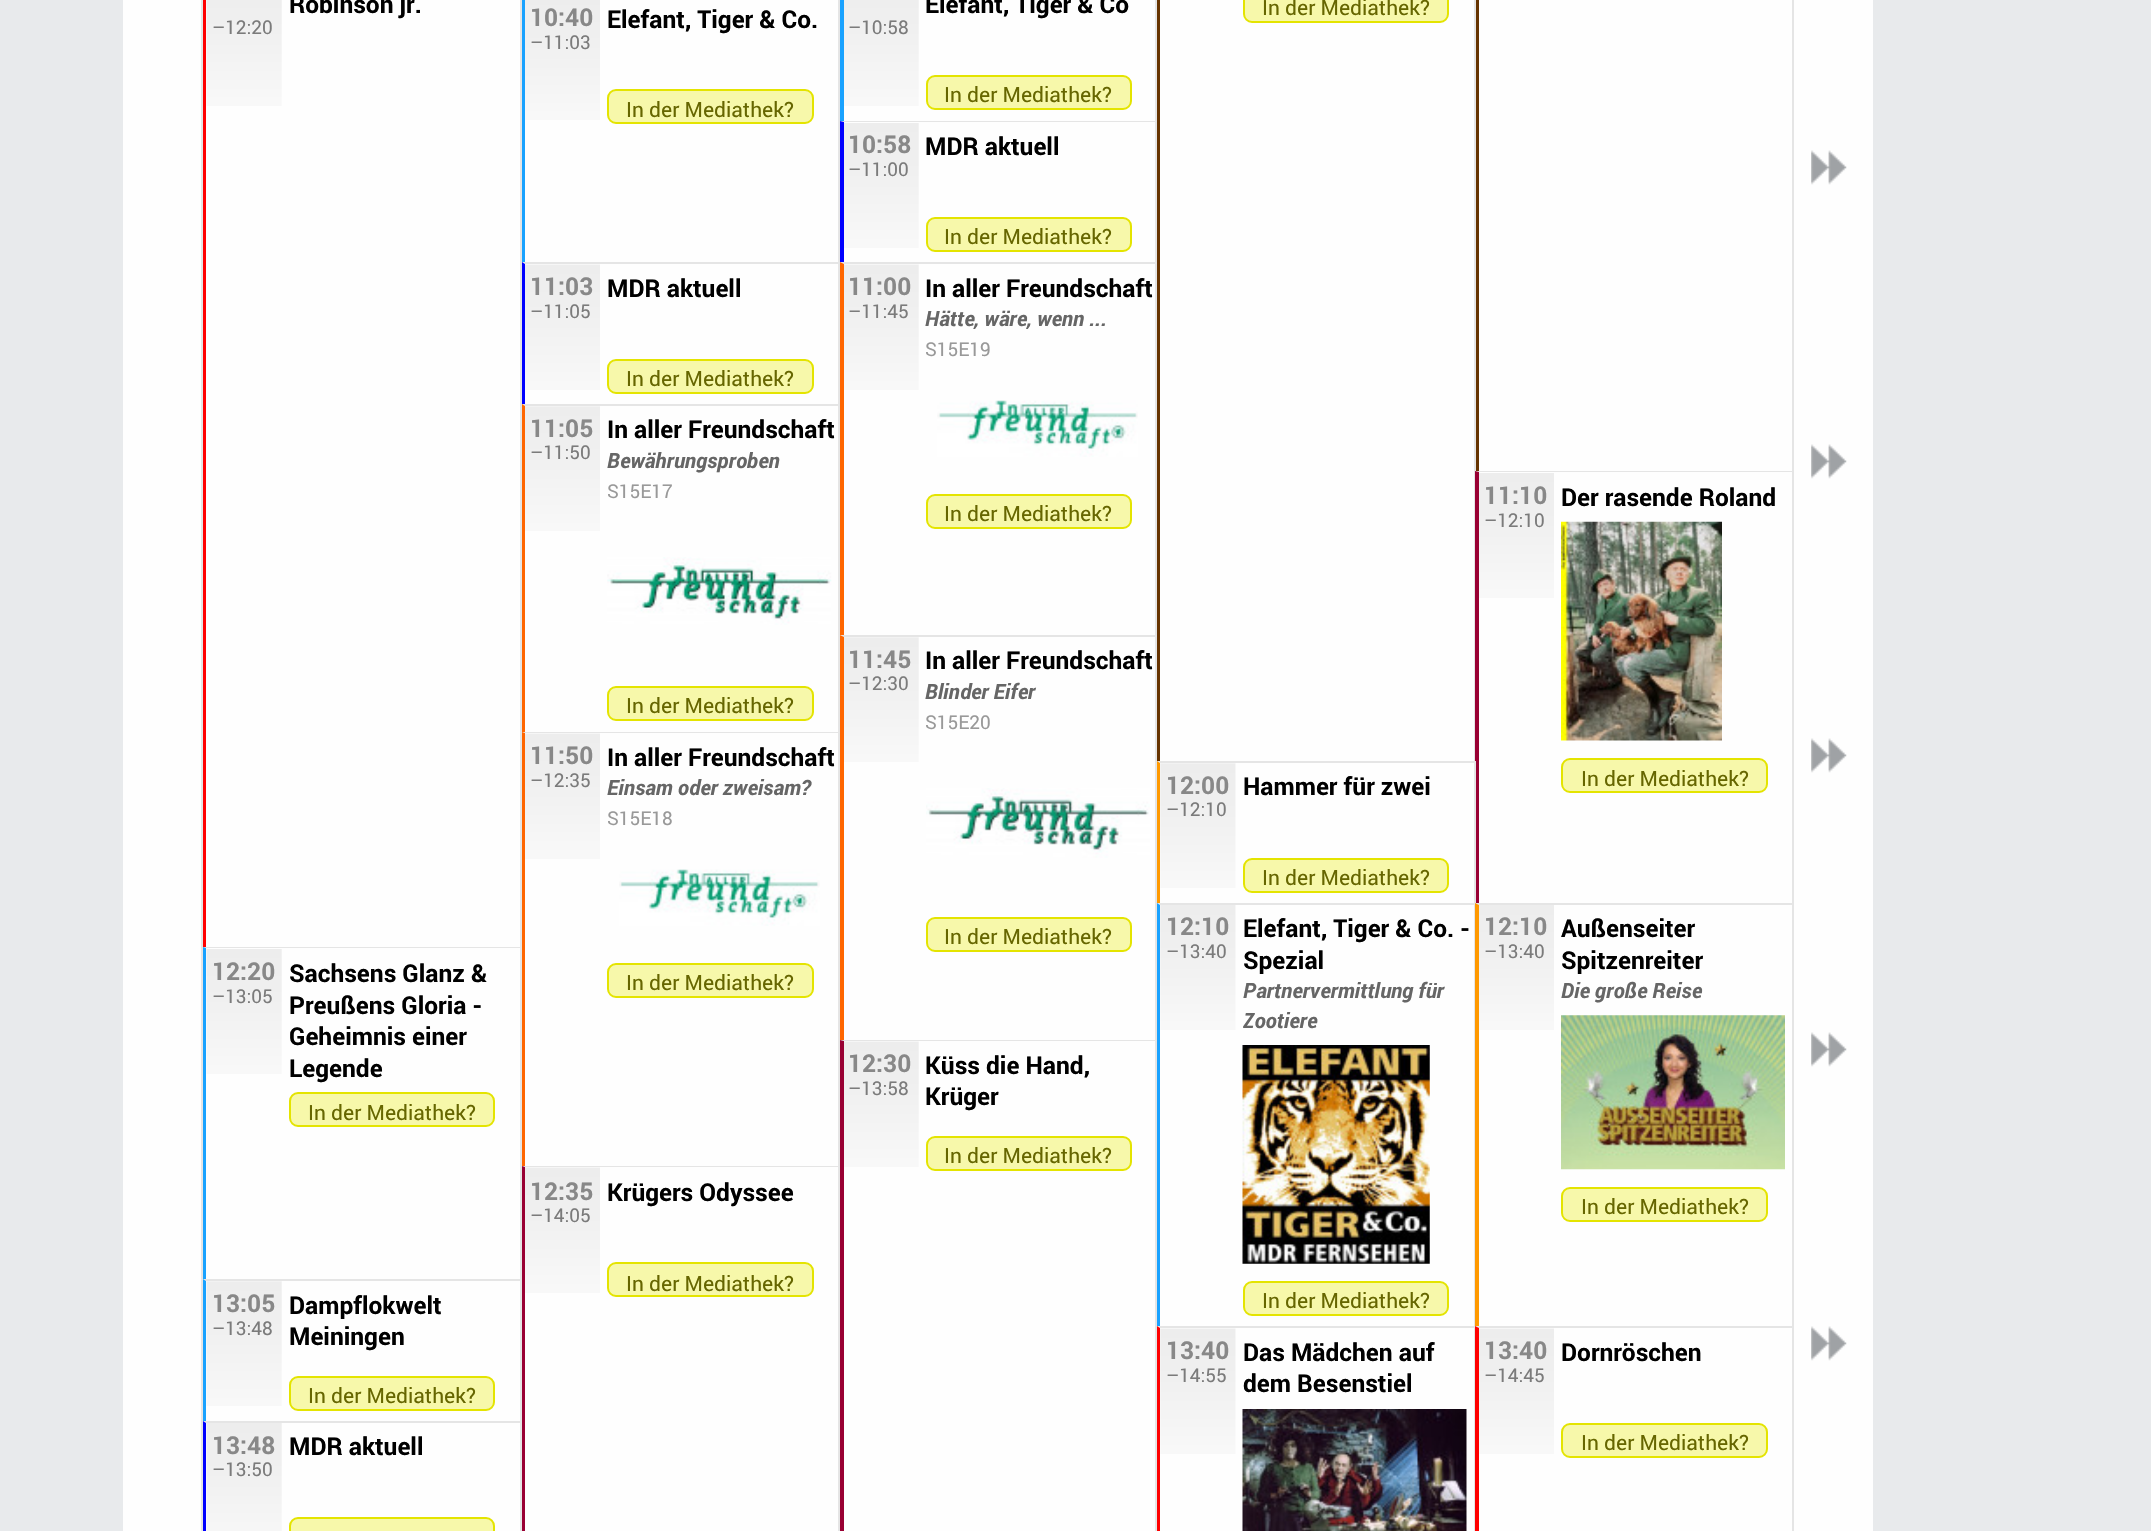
void draw(SkCanvas* canvas) {
    SkPaint paint;
    paint.setAntiAlias(true);
    canvas->clear(0xFFE8EAEC);
    paint.setColor(0xFFFEFEFE);
    canvas->drawRect(SkRect::MakeXYWH(123, 0, 1750, 1531), paint);
    paint.setColor(0xFFE5E5E5);
    canvas->drawRect(SkRect::MakeXYWH(201, 0, 2, 1531), paint);
    canvas->drawImageRect(SkImages::DeferredFromEncodedData(SkData::MakeFromFileName("img1.png")), SkRect::MakeXYWH(206, 0, 76, 106), SkSamplingOptions());
    canvas->drawRect(SkRect::MakeXYWH(520, 0, 2, 947), paint);
    paint.setColor(0xFFFF0000);
    canvas->drawPath(SkPathBuilder().moveTo(203, 947).lineTo(203, -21).lineTo(206, -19).lineTo(206, 947).close().detach(), paint);
    SkFont font1(fontMgr->matchFamilyStyle("Roboto", SkFontStyle::Bold()), 24.5f);
    font1.setSubpixel(true);
    paint.setColor(0xFF000000);
    canvas->drawString("Robinson jr.", 289, 13, font1, paint);
    SkFont font2(fontMgr->matchFamilyStyle("Roboto", SkFontStyle::Normal()), 19);
    font2.setSubpixel(true);
    paint.setColor(0xFF7B7B7B);
    canvas->drawString("–12:20", 212, 34, font2, paint);
    canvas->drawImageRect(SkImages::DeferredFromEncodedData(SkData::MakeFromFileName("img2.png")), SkRect::MakeXYWH(844, 0, 75, 106), SkSamplingOptions());
    paint.setColor(0xFFE5E5E5);
    canvas->drawRect(SkRect::MakeXYWH(1155, 0, 2, 121), paint);
    paint.setColor(0xFF19A2FF);
    canvas->drawPath(SkPathBuilder().moveTo(840, 121).lineTo(840, -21).lineTo(844, -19).lineTo(844, 121).close().detach(), paint);
    paint.setColor(0xFF000000);
    canvas->drawString("Elefant, Tiger & Co", 925, 13, font1, paint);
    paint.setColor(0xFF7B7B7B);
    canvas->drawString("–10:58", 848, 34, font2, paint);
    paint.setColor(0xFFF7F8AA);
    canvas->drawRoundRect(SkRect::MakeXYWH(927, 76, 204, 33), 8, 8, paint);
    paint.setStyle(SkPaint::kStroke_Style);
    paint.setStrokeWidth(2);
    paint.setColor(0xFFE4E400);
    canvas->drawRoundRect(SkRect::MakeXYWH(927, 76, 204, 33), 8, 8, paint);
    SkFont font3(fontMgr->matchFamilyStyle("Roboto", SkFontStyle::Normal()), 21);
    font3.setSubpixel(true);
    paint.setStyle(SkPaint::kFill_Style);
    paint.setColor(0xFF666600);
    canvas->drawString("In der Mediathek?", 944, 102, font3, paint);
    paint.setColor(0xFF663300);
    canvas->drawPath(SkPathBuilder().moveTo(1475, 471).lineTo(1475, -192).lineTo(1479, -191).lineTo(1479, 471).close().detach(), paint);
    paint.setColor(0xFFE5E5E5);
    canvas->drawRect(SkRect::MakeXYWH(1474, 0, 2, 761), paint);
    paint.setColor(0xFF663300);
    canvas->drawPath(SkPathBuilder().moveTo(1157, 761).lineTo(1157, -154).lineTo(1160, -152).lineTo(1160, 761).close().detach(), paint);
    paint.setColor(0xFFF7F8AA);
    canvas->drawRoundRect(SkRect::MakeXYWH(1244, -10, 204, 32), 8, 8, paint);
    paint.setStyle(SkPaint::kStroke_Style);
    paint.setColor(0xFFE4E400);
    canvas->drawRoundRect(SkRect::MakeXYWH(1244, -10, 204, 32), 8, 8, paint);
    paint.setStyle(SkPaint::kFill_Style);
    paint.setColor(0xFF666600);
    canvas->drawString("In der Mediathek?", 1262, 15, font3, paint);
    paint.setColor(0xFFE5E5E5);
    canvas->drawRect(SkRect::MakeXYWH(1792, 0, 2, 471), paint);
    canvas->drawImageRect(SkImages::DeferredFromEncodedData(SkData::MakeFromFileName("img3.png")), SkRect::MakeXYWH(525, 0, 75, 120), SkSamplingOptions());
    canvas->drawRect(SkRect::MakeXYWH(838, 0, 2, 263), paint);
    paint.setColor(0xFF19A2FF);
    canvas->drawPath(SkPathBuilder().moveTo(522, 262).lineTo(522, -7).lineTo(525, -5).lineTo(525, 262).close().detach(), paint);
    paint.setColor(0xFF888888);
    canvas->drawString("10:40", 530, 26, font1, paint);
    paint.setColor(0xFF7B7B7B);
    canvas->drawString("–11:03", 530, 49, font2, paint);
    paint.setColor(0xFF000000);
    canvas->drawString("Elefant, Tiger & Co.", 607, 28, font1, paint);
    paint.setColor(0xFFF7F8AA);
    canvas->drawRoundRect(SkRect::MakeXYWH(608, 90, 205, 33), 8, 8, paint);
    paint.setStyle(SkPaint::kStroke_Style);
    paint.setColor(0xFFE4E400);
    canvas->drawRoundRect(SkRect::MakeXYWH(608, 90, 205, 33), 8, 8, paint);
    paint.setStyle(SkPaint::kFill_Style);
    paint.setColor(0xFF666600);
    canvas->drawString("In der Mediathek?", 626, 117, font3, paint);
    canvas->drawImageRect(SkImages::DeferredFromEncodedData(SkData::MakeFromFileName("img4.png")), SkRect::MakeXYWH(844, 123, 75, 125), SkSamplingOptions());
    paint.setColor(0xFFE5E5E5);
    canvas->drawPath(SkPathBuilder().moveTo(840, 121).lineTo(1157, 121).lineTo(1155, 122).lineTo(844, 122).close().detach(), paint);
    canvas->drawRect(SkRect::MakeXYWH(1155, 121, 2, 142), paint);
    paint.setColor(0xFF0000FF);
    canvas->drawPath(SkPathBuilder().moveTo(840, 262).lineTo(840, 121).lineTo(844, 122).lineTo(844, 262).close().detach(), paint);
    paint.setColor(0xFF888888);
    canvas->drawString("10:58", 848, 153, font1, paint);
    paint.setColor(0xFF7B7B7B);
    canvas->drawString("–11:00", 848, 176, font2, paint);
    paint.setColor(0xFF000000);
    canvas->drawString("MDR aktuell", 925, 155, font1, paint);
    paint.setColor(0xFFF7F8AA);
    canvas->drawRoundRect(SkRect::MakeXYWH(927, 218, 204, 33), 8, 8, paint);
    paint.setStyle(SkPaint::kStroke_Style);
    paint.setColor(0xFFE4E400);
    canvas->drawRoundRect(SkRect::MakeXYWH(927, 218, 204, 33), 8, 8, paint);
    paint.setStyle(SkPaint::kFill_Style);
    paint.setColor(0xFF666600);
    canvas->drawString("In der Mediathek?", 944, 244, font3, paint);
    canvas->drawImageRect(SkImages::DeferredFromEncodedData(SkData::MakeFromFileName("img5.png")), SkRect::MakeXYWH(525, 264, 75, 126), SkSamplingOptions());
    paint.setColor(0xFFE5E5E5);
    canvas->drawPath(SkPathBuilder().moveTo(522, 262).lineTo(840, 262).lineTo(838, 264).lineTo(525, 264).close().detach(), paint);
    canvas->drawRect(SkRect::MakeXYWH(838, 263, 2, 141), paint);
    paint.setColor(0xFF0000FF);
    canvas->drawPath(SkPathBuilder().moveTo(522, 404).lineTo(522, 262).lineTo(525, 264).lineTo(525, 404).close().detach(), paint);
    paint.setColor(0xFF888888);
    canvas->drawString("11:03", 530, 295, font1, paint);
    paint.setColor(0xFF7B7B7B);
    canvas->drawString("–11:05", 530, 318, font2, paint);
    paint.setColor(0xFF000000);
    canvas->drawString("MDR aktuell", 607, 297, font1, paint);
    paint.setColor(0xFFF7F8AA);
    canvas->drawRoundRect(SkRect::MakeXYWH(608, 360, 205, 33), 8, 8, paint);
    paint.setStyle(SkPaint::kStroke_Style);
    paint.setColor(0xFFE4E400);
    canvas->drawRoundRect(SkRect::MakeXYWH(608, 360, 205, 33), 8, 8, paint);
    paint.setStyle(SkPaint::kFill_Style);
    paint.setColor(0xFF666600);
    canvas->drawString("In der Mediathek?", 626, 386, font3, paint);
    canvas->drawImageRect(SkImages::DeferredFromEncodedData(SkData::MakeFromFileName("img6.png")), SkRect::MakeXYWH(844, 264, 75, 126), SkSamplingOptions());
    paint.setColor(0xFFE5E5E5);
    canvas->drawPath(SkPathBuilder().moveTo(840, 262).lineTo(1157, 262).lineTo(1155, 264).lineTo(844, 264).close().detach(), paint);
    canvas->drawRect(SkRect::MakeXYWH(1155, 263, 2, 372), paint);
    paint.setColor(0xFFFF6600);
    canvas->drawPath(SkPathBuilder().moveTo(840, 635).lineTo(840, 262).lineTo(844, 264).lineTo(844, 635).close().detach(), paint);
    paint.setColor(0xFF888888);
    canvas->drawString("11:00", 848, 295, font1, paint);
    paint.setColor(0xFF7B7B7B);
    canvas->drawString("–11:45", 848, 318, font2, paint);
    paint.setColor(0xFF000000);
    canvas->drawString("In aller Freundschaft", 925, 297, font1, paint);
    SkFont font4(fontMgr->matchFamilyStyle("Roboto", SkFontStyle::BoldItalic()), 21);
    font4.setSubpixel(true);
    paint.setColor(0xFF666666);
    canvas->drawString("Hätte, wäre, wenn ...", 925, 326, font4, paint);
    paint.setColor(0xFF999999);
    canvas->drawString("S15E19", 925, 356, font2, paint);
    canvas->drawImageRect(SkImages::DeferredFromEncodedData(SkData::MakeFromFileName("img7.png")), SkRect::MakeXYWH(937, 400, 201, 57), SkSamplingOptions());
    paint.setColor(0xFFF7F8AA);
    canvas->drawRoundRect(SkRect::MakeXYWH(927, 495, 204, 33), 8, 8, paint);
    paint.setStyle(SkPaint::kStroke_Style);
    paint.setColor(0xFFE4E400);
    canvas->drawRoundRect(SkRect::MakeXYWH(927, 495, 204, 33), 8, 8, paint);
    paint.setStyle(SkPaint::kFill_Style);
    paint.setColor(0xFF666600);
    canvas->drawString("In der Mediathek?", 944, 521, font3, paint);
    canvas->drawImageRect(SkImages::DeferredFromEncodedData(SkData::MakeFromFileName("img8.png")), SkRect::MakeXYWH(525, 406, 75, 125), SkSamplingOptions());
    paint.setColor(0xFFE5E5E5);
    canvas->drawPath(SkPathBuilder().moveTo(522, 404).lineTo(840, 404).lineTo(838, 406).lineTo(525, 406).close().detach(), paint);
    canvas->drawRect(SkRect::MakeXYWH(838, 404, 2, 328), paint);
    paint.setColor(0xFFFF6600);
    canvas->drawPath(SkPathBuilder().moveTo(522, 732).lineTo(522, 404).lineTo(525, 406).lineTo(525, 732).close().detach(), paint);
    paint.setColor(0xFF888888);
    canvas->drawString("11:05", 530, 437, font1, paint);
    paint.setColor(0xFF7B7B7B);
    canvas->drawString("–11:50", 530, 459, font2, paint);
    paint.setColor(0xFF000000);
    canvas->drawString("In aller Freundschaft", 607, 438, font1, paint);
    paint.setColor(0xFF666666);
    canvas->drawString("Bewährungsproben", 607, 468, font4, paint);
    paint.setColor(0xFF999999);
    canvas->drawString("S15E17", 607, 498, font2, paint);
    canvas->drawImageRect(SkImages::DeferredFromEncodedData(SkData::MakeFromFileName("img9.png")), SkRect::MakeXYWH(607, 557, 225, 68), SkSamplingOptions());
    paint.setColor(0xFFF7F8AA);
    canvas->drawRoundRect(SkRect::MakeXYWH(608, 687, 205, 33), 8, 8, paint);
    paint.setStyle(SkPaint::kStroke_Style);
    paint.setColor(0xFFE4E400);
    canvas->drawRoundRect(SkRect::MakeXYWH(608, 687, 205, 33), 8, 8, paint);
    paint.setStyle(SkPaint::kFill_Style);
    paint.setColor(0xFF666600);
    canvas->drawString("In der Mediathek?", 626, 713, font3, paint);
    canvas->drawImageRect(SkImages::DeferredFromEncodedData(SkData::MakeFromFileName("img10.png")), SkRect::MakeXYWH(844, 637, 75, 125), SkSamplingOptions());
    paint.setColor(0xFFE5E5E5);
    canvas->drawPath(SkPathBuilder().moveTo(840, 635).lineTo(1157, 635).lineTo(1155, 637).lineTo(844, 637).close().detach(), paint);
    canvas->drawRect(SkRect::MakeXYWH(1155, 635, 2, 405), paint);
    paint.setColor(0xFFFF6600);
    canvas->drawPath(SkPathBuilder().moveTo(840, 1040).lineTo(840, 635).lineTo(844, 637).lineTo(844, 1040).close().detach(), paint);
    paint.setColor(0xFF888888);
    canvas->drawString("11:45", 848, 668, font1, paint);
    paint.setColor(0xFF7B7B7B);
    canvas->drawString("–12:30", 848, 690, font2, paint);
    paint.setColor(0xFF000000);
    canvas->drawString("In aller Freundschaft", 925, 669, font1, paint);
    paint.setColor(0xFF666666);
    canvas->drawString("Blinder Eifer", 925, 699, font4, paint);
    paint.setColor(0xFF999999);
    canvas->drawString("S15E20", 925, 729, font2, paint);
    canvas->drawImageRect(SkImages::DeferredFromEncodedData(SkData::MakeFromFileName("img11.png")), SkRect::MakeXYWH(926, 788, 224, 70), SkSamplingOptions());
    paint.setColor(0xFFF7F8AA);
    canvas->drawRoundRect(SkRect::MakeXYWH(927, 918, 204, 33), 8, 8, paint);
    paint.setStyle(SkPaint::kStroke_Style);
    paint.setColor(0xFFE4E400);
    canvas->drawRoundRect(SkRect::MakeXYWH(927, 918, 204, 33), 8, 8, paint);
    paint.setStyle(SkPaint::kFill_Style);
    paint.setColor(0xFF666600);
    canvas->drawString("In der Mediathek?", 944, 944, font3, paint);
    canvas->drawImageRect(SkImages::DeferredFromEncodedData(SkData::MakeFromFileName("img12.png")), SkRect::MakeXYWH(1479, 473, 75, 125), SkSamplingOptions());
    paint.setColor(0xFFE5E5E5);
    canvas->drawPath(SkPathBuilder().moveTo(1475, 471).lineTo(1794, 471).lineTo(1792, 472).lineTo(1479, 472).close().detach(), paint);
    canvas->drawRect(SkRect::MakeXYWH(1792, 471, 2, 432), paint);
    paint.setColor(0xFF990033);
    canvas->drawPath(SkPathBuilder().moveTo(1475, 903).lineTo(1475, 471).lineTo(1479, 472).lineTo(1479, 903).close().detach(), paint);
    paint.setColor(0xFF888888);
    canvas->drawString("11:10", 1484, 504, font1, paint);
    paint.setColor(0xFF7B7B7B);
    canvas->drawString("–12:10", 1484, 527, font2, paint);
    paint.setColor(0xFF000000);
    canvas->drawString("Der rasende Roland", 1561, 506, font1, paint);
    canvas->drawImageRect(SkImages::DeferredFromEncodedData(SkData::MakeFromFileName("img13.png")), SkRect::MakeXYWH(1561, 521, 161, 220), SkSamplingOptions());
    paint.setColor(0xFFF7F8AA);
    canvas->drawRoundRect(SkRect::MakeXYWH(1562, 759, 205, 33), 8, 8, paint);
    paint.setStyle(SkPaint::kStroke_Style);
    paint.setColor(0xFFE4E400);
    canvas->drawRoundRect(SkRect::MakeXYWH(1562, 759, 205, 33), 8, 8, paint);
    paint.setStyle(SkPaint::kFill_Style);
    paint.setColor(0xFF666600);
    canvas->drawString("In der Mediathek?", 1581, 786, font3, paint);
    canvas->drawImageRect(SkImages::DeferredFromEncodedData(SkData::MakeFromFileName("img5.png")), SkRect::MakeXYWH(525, 733, 75, 126), SkSamplingOptions());
    paint.setColor(0xFFE5E5E5);
    canvas->drawPath(SkPathBuilder().moveTo(522, 732).lineTo(840, 732).lineTo(838, 733).lineTo(525, 733).close().detach(), paint);
    canvas->drawRect(SkRect::MakeXYWH(838, 732, 2, 434), paint);
    paint.setColor(0xFFFF6600);
    canvas->drawPath(SkPathBuilder().moveTo(522, 1166).lineTo(522, 732).lineTo(525, 733).lineTo(525, 1166).close().detach(), paint);
    paint.setColor(0xFF888888);
    canvas->drawString("11:50", 530, 764, font1, paint);
    paint.setColor(0xFF7B7B7B);
    canvas->drawString("–12:35", 530, 787, font2, paint);
    paint.setColor(0xFF000000);
    canvas->drawString("In aller Freundschaft", 607, 766, font1, paint);
    paint.setColor(0xFF666666);
    canvas->drawString("Einsam oder zweisam?", 607, 795, font4, paint);
    paint.setColor(0xFF999999);
    canvas->drawString("S15E18", 607, 825, font2, paint);
    canvas->drawImageRect(SkImages::DeferredFromEncodedData(SkData::MakeFromFileName("img14.png")), SkRect::MakeXYWH(619, 869, 201, 57), SkSamplingOptions());
    paint.setColor(0xFFF7F8AA);
    canvas->drawRoundRect(SkRect::MakeXYWH(608, 964, 205, 33), 8, 8, paint);
    paint.setStyle(SkPaint::kStroke_Style);
    paint.setColor(0xFFE4E400);
    canvas->drawRoundRect(SkRect::MakeXYWH(608, 964, 205, 33), 8, 8, paint);
    paint.setStyle(SkPaint::kFill_Style);
    paint.setColor(0xFF666600);
    canvas->drawString("In der Mediathek?", 626, 990, font3, paint);
    canvas->drawImageRect(SkImages::DeferredFromEncodedData(SkData::MakeFromFileName("img15.png")), SkRect::MakeXYWH(1160, 763, 76, 125), SkSamplingOptions());
    paint.setColor(0xFFE5E5E5);
    canvas->drawPath(SkPathBuilder().moveTo(1157, 761).lineTo(1475, 761).lineTo(1474, 763).lineTo(1160, 763).close().detach(), paint);
    canvas->drawRect(SkRect::MakeXYWH(1474, 761, 2, 142), paint);
    paint.setColor(0xFFFF9900);
    canvas->drawPath(SkPathBuilder().moveTo(1157, 903).lineTo(1157, 761).lineTo(1160, 763).lineTo(1160, 903).close().detach(), paint);
    paint.setColor(0xFF888888);
    canvas->drawString("12:00", 1166, 794, font1, paint);
    paint.setColor(0xFF7B7B7B);
    canvas->drawString("–12:10", 1166, 816, font2, paint);
    paint.setColor(0xFF000000);
    canvas->drawString("Hammer für zwei", 1243, 795, font1, paint);
    paint.setColor(0xFFF7F8AA);
    canvas->drawRoundRect(SkRect::MakeXYWH(1244, 859, 204, 33), 8, 8, paint);
    paint.setStyle(SkPaint::kStroke_Style);
    paint.setColor(0xFFE4E400);
    canvas->drawRoundRect(SkRect::MakeXYWH(1244, 859, 204, 33), 8, 8, paint);
    paint.setStyle(SkPaint::kFill_Style);
    paint.setColor(0xFF666600);
    canvas->drawString("In der Mediathek?", 1262, 885, font3, paint);
    canvas->drawImageRect(SkImages::DeferredFromEncodedData(SkData::MakeFromFileName("img16.png")), SkRect::MakeXYWH(206, 949, 76, 125), SkSamplingOptions());
    paint.setColor(0xFFE5E5E5);
    canvas->drawPath(SkPathBuilder().moveTo(203, 947).lineTo(522, 947).lineTo(520, 948).lineTo(206, 948).close().detach(), paint);
    canvas->drawRect(SkRect::MakeXYWH(520, 947, 2, 332), paint);
    paint.setColor(0xFF19A2FF);
    canvas->drawPath(SkPathBuilder().moveTo(203, 1279).lineTo(203, 947).lineTo(206, 948).lineTo(206, 1279).close().detach(), paint);
    paint.setColor(0xFF888888);
    canvas->drawString("12:20", 212, 980, font1, paint);
    paint.setColor(0xFF7B7B7B);
    canvas->drawString("–13:05", 212, 1003, font2, paint);
    paint.setColor(0xFF000000);
    canvas->drawString("Sachsens Glanz &", 289, 982, font1, paint);
    canvas->drawString("Preußens Gloria -", 289, 1014, font1, paint);
    canvas->drawString("Geheimnis einer", 289, 1045, font1, paint);
    canvas->drawString("Legende", 289, 1077, font1, paint);
    paint.setColor(0xFFF7F8AA);
    canvas->drawRoundRect(SkRect::MakeXYWH(290, 1093, 204, 33), 8, 8, paint);
    paint.setStyle(SkPaint::kStroke_Style);
    paint.setColor(0xFFE4E400);
    canvas->drawRoundRect(SkRect::MakeXYWH(290, 1093, 204, 33), 8, 8, paint);
    paint.setStyle(SkPaint::kFill_Style);
    paint.setColor(0xFF666600);
    canvas->drawString("In der Mediathek?", 308, 1120, font3, paint);
    canvas->drawImageRect(SkImages::DeferredFromEncodedData(SkData::MakeFromFileName("img6.png")), SkRect::MakeXYWH(844, 1041, 75, 126), SkSamplingOptions());
    paint.setColor(0xFFE5E5E5);
    canvas->drawPath(SkPathBuilder().moveTo(840, 1040).lineTo(1157, 1040).lineTo(1155, 1041).lineTo(844, 1041).close().detach(), paint);
    canvas->drawRect(SkRect::MakeXYWH(1155, 1040, 2, 491), paint);
    paint.setColor(0xFF990033);
    canvas->drawPath(SkPathBuilder().moveTo(840, 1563).lineTo(840, 1040).lineTo(844, 1041).lineTo(844, 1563).close().detach(), paint);
    paint.setColor(0xFF888888);
    canvas->drawString("12:30", 848, 1072, font1, paint);
    paint.setColor(0xFF7B7B7B);
    canvas->drawString("–13:58", 848, 1095, font2, paint);
    paint.setColor(0xFF000000);
    canvas->drawString("Küss die Hand,", 925, 1074, font1, paint);
    canvas->drawString("Krüger", 925, 1105, font1, paint);
    paint.setColor(0xFFF7F8AA);
    canvas->drawRoundRect(SkRect::MakeXYWH(927, 1137, 204, 33), 8, 8, paint);
    paint.setStyle(SkPaint::kStroke_Style);
    paint.setColor(0xFFE4E400);
    canvas->drawRoundRect(SkRect::MakeXYWH(927, 1137, 204, 33), 8, 8, paint);
    paint.setStyle(SkPaint::kFill_Style);
    paint.setColor(0xFF666600);
    canvas->drawString("In der Mediathek?", 944, 1163, font3, paint);
    canvas->drawImageRect(SkImages::DeferredFromEncodedData(SkData::MakeFromFileName("img17.png")), SkRect::MakeXYWH(1160, 905, 76, 125), SkSamplingOptions());
    paint.setColor(0xFFE5E5E5);
    canvas->drawPath(SkPathBuilder().moveTo(1157, 903).lineTo(1475, 903).lineTo(1474, 905).lineTo(1160, 905).close().detach(), paint);
    canvas->drawRect(SkRect::MakeXYWH(1474, 903, 2, 424), paint);
    paint.setColor(0xFF19A2FF);
    canvas->drawPath(SkPathBuilder().moveTo(1157, 1326).lineTo(1157, 903).lineTo(1160, 905).lineTo(1160, 1326).close().detach(), paint);
    paint.setColor(0xFF888888);
    canvas->drawString("12:10", 1166, 935, font1, paint);
    paint.setColor(0xFF7B7B7B);
    canvas->drawString("–13:40", 1166, 958, font2, paint);
    paint.setColor(0xFF000000);
    canvas->drawString("Elefant, Tiger & Co. -", 1243, 937, font1, paint);
    canvas->drawString("Spezial", 1243, 969, font1, paint);
    paint.setColor(0xFF666666);
    canvas->drawString("Partnervermittlung für", 1243, 998, font4, paint);
    canvas->drawString("Zootiere", 1243, 1028, font4, paint);
    canvas->drawImageRect(SkImages::DeferredFromEncodedData(SkData::MakeFromFileName("img18.png")), SkRect::MakeXYWH(1242, 1045, 188, 219), SkSamplingOptions());
    paint.setColor(0xFFF7F8AA);
    canvas->drawRoundRect(SkRect::MakeXYWH(1244, 1282, 204, 33), 8, 8, paint);
    paint.setStyle(SkPaint::kStroke_Style);
    paint.setColor(0xFFE4E400);
    canvas->drawRoundRect(SkRect::MakeXYWH(1244, 1282, 204, 33), 8, 8, paint);
    paint.setStyle(SkPaint::kFill_Style);
    paint.setColor(0xFF666600);
    canvas->drawString("In der Mediathek?", 1262, 1308, font3, paint);
    canvas->drawImageRect(SkImages::DeferredFromEncodedData(SkData::MakeFromFileName("img19.png")), SkRect::MakeXYWH(1479, 905, 75, 125), SkSamplingOptions());
    paint.setColor(0xFFE5E5E5);
    canvas->drawPath(SkPathBuilder().moveTo(1475, 903).lineTo(1794, 903).lineTo(1792, 905).lineTo(1479, 905).close().detach(), paint);
    canvas->drawRect(SkRect::MakeXYWH(1792, 903, 2, 424), paint);
    paint.setColor(0xFFFF9900);
    canvas->drawPath(SkPathBuilder().moveTo(1475, 1326).lineTo(1475, 903).lineTo(1479, 905).lineTo(1479, 1326).close().detach(), paint);
    paint.setColor(0xFF888888);
    canvas->drawString("12:10", 1484, 935, font1, paint);
    paint.setColor(0xFF7B7B7B);
    canvas->drawString("–13:40", 1484, 958, font2, paint);
    paint.setColor(0xFF000000);
    canvas->drawString("Außenseiter", 1561, 937, font1, paint);
    canvas->drawString("Spitzenreiter", 1561, 969, font1, paint);
    paint.setColor(0xFF666666);
    canvas->drawString("Die große Reise", 1561, 998, font4, paint);
    canvas->drawImageRect(SkImages::DeferredFromEncodedData(SkData::MakeFromFileName("img20.png")), SkRect::MakeXYWH(1561, 1015, 224, 155), SkSamplingOptions());
    paint.setColor(0xFFF7F8AA);
    canvas->drawRoundRect(SkRect::MakeXYWH(1562, 1188, 205, 33), 8, 8, paint);
    paint.setStyle(SkPaint::kStroke_Style);
    paint.setColor(0xFFE4E400);
    canvas->drawRoundRect(SkRect::MakeXYWH(1562, 1188, 205, 33), 8, 8, paint);
    paint.setStyle(SkPaint::kFill_Style);
    paint.setColor(0xFF666600);
    canvas->drawString("In der Mediathek?", 1581, 1214, font3, paint);
    canvas->drawImageRect(SkImages::DeferredFromEncodedData(SkData::MakeFromFileName("img5.png")), SkRect::MakeXYWH(525, 1167, 75, 126), SkSamplingOptions());
    paint.setColor(0xFFE5E5E5);
    canvas->drawPath(SkPathBuilder().moveTo(522, 1166).lineTo(840, 1166).lineTo(838, 1167).lineTo(525, 1167).close().detach(), paint);
    canvas->drawRect(SkRect::MakeXYWH(838, 1166, 2, 365), paint);
    paint.setColor(0xFF990033);
    canvas->drawPath(SkPathBuilder().moveTo(522, 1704).lineTo(522, 1166).lineTo(525, 1167).lineTo(525, 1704).close().detach(), paint);
    paint.setColor(0xFF888888);
    canvas->drawString("12:35", 530, 1200, font1, paint);
    paint.setColor(0xFF7B7B7B);
    canvas->drawString("–14:05", 530, 1222, font2, paint);
    paint.setColor(0xFF000000);
    canvas->drawString("Krügers Odyssee", 607, 1201, font1, paint);
    paint.setColor(0xFFF7F8AA);
    canvas->drawRoundRect(SkRect::MakeXYWH(608, 1263, 205, 33), 8, 8, paint);
    paint.setStyle(SkPaint::kStroke_Style);
    paint.setColor(0xFFE4E400);
    canvas->drawRoundRect(SkRect::MakeXYWH(608, 1263, 205, 33), 8, 8, paint);
    paint.setStyle(SkPaint::kFill_Style);
    paint.setColor(0xFF666600);
    canvas->drawString("In der Mediathek?", 626, 1291, font3, paint);
    canvas->drawImageRect(SkImages::DeferredFromEncodedData(SkData::MakeFromFileName("img21.png")), SkRect::MakeXYWH(206, 1281, 76, 125), SkSamplingOptions());
    paint.setColor(0xFFE5E5E5);
    canvas->drawPath(SkPathBuilder().moveTo(203, 1279).lineTo(522, 1279).lineTo(520, 1281).lineTo(206, 1281).close().detach(), paint);
    canvas->drawRect(SkRect::MakeXYWH(520, 1279, 2, 142), paint);
    paint.setColor(0xFF19A2FF);
    canvas->drawPath(SkPathBuilder().moveTo(203, 1421).lineTo(203, 1279).lineTo(206, 1281).lineTo(206, 1421).close().detach(), paint);
    paint.setColor(0xFF888888);
    canvas->drawString("13:05", 212, 1312, font1, paint);
    paint.setColor(0xFF7B7B7B);
    canvas->drawString("–13:48", 212, 1335, font2, paint);
    paint.setColor(0xFF000000);
    canvas->drawString("Dampflokwelt", 289, 1314, font1, paint);
    canvas->drawString("Meiningen", 289, 1345, font1, paint);
    paint.setColor(0xFFF7F8AA);
    canvas->drawRoundRect(SkRect::MakeXYWH(290, 1377, 204, 33), 8, 8, paint);
    paint.setStyle(SkPaint::kStroke_Style);
    paint.setColor(0xFFE4E400);
    canvas->drawRoundRect(SkRect::MakeXYWH(290, 1377, 204, 33), 8, 8, paint);
    paint.setStyle(SkPaint::kFill_Style);
    paint.setColor(0xFF666600);
    canvas->drawString("In der Mediathek?", 308, 1403, font3, paint);
    canvas->drawImageRect(SkImages::DeferredFromEncodedData(SkData::MakeFromFileName("img22.png")), SkRect::MakeXYWH(1160, 1328, 76, 126), SkSamplingOptions());
    paint.setColor(0xFFE5E5E5);
    canvas->drawPath(SkPathBuilder().moveTo(1157, 1326).lineTo(1475, 1326).lineTo(1474, 1328).lineTo(1160, 1328).close().detach(), paint);
    canvas->drawRect(SkRect::MakeXYWH(1474, 1327, 1, 204), paint);
    paint.setColor(0xFFFF0000);
    canvas->drawPath(SkPathBuilder().moveTo(1157, 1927).lineTo(1157, 1326).lineTo(1160, 1328).lineTo(1160, 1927).close().detach(), paint);
    paint.setColor(0xFF888888);
    canvas->drawString("13:40", 1166, 1359, font1, paint);
    paint.setColor(0xFF7B7B7B);
    canvas->drawString("–14:55", 1166, 1382, font2, paint);
    paint.setColor(0xFF000000);
    canvas->drawString("Das Mädchen auf", 1243, 1361, font1, paint);
    canvas->drawString("dem Besenstiel", 1243, 1392, font1, paint);
    canvas->drawImageRect(SkImages::DeferredFromEncodedData(SkData::MakeFromFileName("img23.png")), SkRect::MakeXYWH(1242, 1409, 225, 122), SkSamplingOptions());
    canvas->drawImageRect(SkImages::DeferredFromEncodedData(SkData::MakeFromFileName("img5.png")), SkRect::MakeXYWH(1479, 1328, 75, 126), SkSamplingOptions());
    paint.setColor(0xFFE5E5E5);
    canvas->drawPath(SkPathBuilder().moveTo(1475, 1326).lineTo(1794, 1326).lineTo(1792, 1328).lineTo(1479, 1328).close().detach(), paint);
    canvas->drawRect(SkRect::MakeXYWH(1792, 1327, 2, 204), paint);
    paint.setColor(0xFFFF0000);
    canvas->drawPath(SkPathBuilder().moveTo(1475, 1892).lineTo(1475, 1326).lineTo(1479, 1328).lineTo(1479, 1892).close().detach(), paint);
    paint.setColor(0xFF888888);
    canvas->drawString("13:40", 1484, 1359, font1, paint);
    paint.setColor(0xFF7B7B7B);
    canvas->drawString("–14:45", 1484, 1382, font2, paint);
    paint.setColor(0xFF000000);
    canvas->drawString("Dornröschen", 1561, 1361, font1, paint);
    paint.setColor(0xFFF7F8AA);
    canvas->drawRoundRect(SkRect::MakeXYWH(1562, 1424, 205, 33), 8, 8, paint);
    paint.setStyle(SkPaint::kStroke_Style);
    paint.setColor(0xFFE4E400);
    canvas->drawRoundRect(SkRect::MakeXYWH(1562, 1424, 205, 33), 8, 8, paint);
    paint.setStyle(SkPaint::kFill_Style);
    paint.setColor(0xFF666600);
    canvas->drawString("In der Mediathek?", 1581, 1450, font3, paint);
    canvas->drawImageRect(SkImages::DeferredFromEncodedData(SkData::MakeFromFileName("img24.png")), SkRect::MakeXYWH(206, 1423, 76, 108), SkSamplingOptions());
    paint.setColor(0xFFE5E5E5);
    canvas->drawPath(SkPathBuilder().moveTo(203, 1421).lineTo(522, 1421).lineTo(520, 1423).lineTo(206, 1423).close().detach(), paint);
    canvas->drawRect(SkRect::MakeXYWH(520, 1421, 2, 110), paint);
    paint.setColor(0xFF0000FF);
    canvas->drawPath(SkPathBuilder().moveTo(203, 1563).lineTo(203, 1421).lineTo(206, 1423).lineTo(206, 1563).close().detach(), paint);
    paint.setColor(0xFF888888);
    canvas->drawString("13:48", 212, 1454, font1, paint);
    paint.setColor(0xFF7B7B7B);
    canvas->drawString("–13:50", 212, 1476, font2, paint);
    paint.setColor(0xFF000000);
    canvas->drawString("MDR aktuell", 289, 1455, font1, paint);
    paint.setColor(0xFFF7F8AA);
    canvas->drawRoundRect(SkRect::MakeXYWH(290, 1518, 204, 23), 8, 8, paint);
    paint.setStyle(SkPaint::kStroke_Style);
    paint.setColor(0xFFE4E400);
    canvas->drawRoundRect(SkRect::MakeXYWH(290, 1518, 204, 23), 8, 8, paint);
    canvas->drawImageRect(SkImages::DeferredFromEncodedData(SkData::MakeFromFileName("img25.png")), SkRect::MakeXYWH(1811, 150, 36, 1211), SkSamplingOptions());
}
